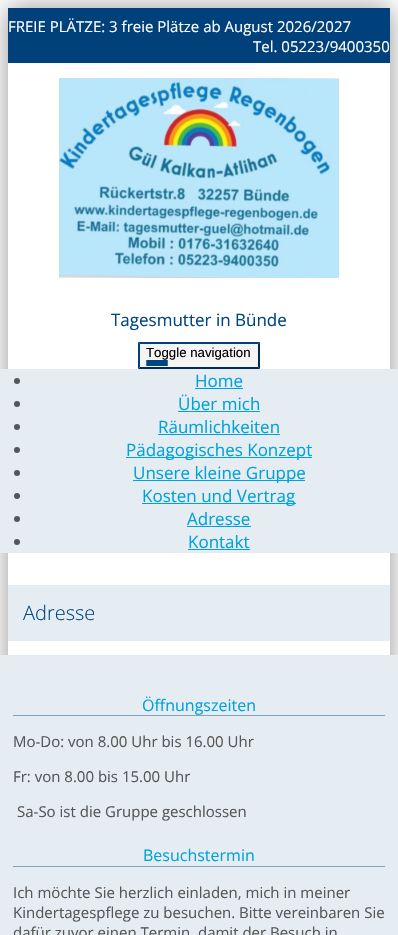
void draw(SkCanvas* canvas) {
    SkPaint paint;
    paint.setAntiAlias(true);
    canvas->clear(0xFFFFFFFF);
    canvas->save();
    canvas->clipPath(SkPathBuilder(SkPathFillType::kEvenOdd).moveTo(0, 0).lineTo(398, 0).lineTo(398, 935).lineTo(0, 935).close().moveTo(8, 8).lineTo(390, 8).lineTo(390, 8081).lineTo(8, 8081).close().detach(), true);
    paint.setColor(0xFF949494);
    paint.setMaskFilter(SkMaskFilter::MakeBlur(kNormal_SkBlurStyle, 12.5f));
    canvas->drawRect(SkRect::MakeXYWH(8, 8, 382, 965), paint);
    paint.setMaskFilter(nullptr);
    canvas->restore();
    paint.setColor(0xFF00417C);
    canvas->drawRect(SkRect::MakeXYWH(8, 8, 382, 55), paint);
    SkFont font1(fontMgr->matchFamilyStyle("Open Sans", SkFontStyle::Normal()), 15);
    font1.setSubpixel(true);
    paint.setColor(0xFFFFFFFF);
    canvas->drawString("FREIE PLÄTZE: 3 freie Plätze ab August 2026/2027", 8, 32, font1, paint);
    canvas->drawString("Tel. 05223/9400350", 253, 52, font1, paint);
    canvas->drawImageRect(SkImages::DeferredFromEncodedData(SkData::MakeFromFileName("img1.png")), SkRect::MakeXYWH(59, 78, 280, 200), SkSamplingOptions());
    SkFont font2(fontMgr->matchFamilyStyle("Open Sans", SkFontStyle::Normal()), 17);
    font2.setSubpixel(true);
    paint.setColor(0xFF004681);
    canvas->drawString("Tagesmutter in Bünde", 111, 326, font2, paint);
    paint.setColor(0xFFF5F5F5);
    canvas->drawRect(SkRect::MakeXYWH(138, 342, 122, 27), paint);
    paint.setColor(0xFF00417C);
    canvas->drawPath(SkPathBuilder().moveTo(138, 342).lineTo(260, 342).lineTo(258, 344).lineTo(140, 344).close().detach(), paint);
    paint.setColor(0xFF002B53);
    canvas->drawPath(SkPathBuilder().moveTo(260, 342).lineTo(260, 369).lineTo(258, 367).lineTo(258, 344).close().detach(), paint);
    canvas->drawPath(SkPathBuilder().moveTo(260, 369).lineTo(138, 369).lineTo(140, 367).lineTo(258, 367).close().detach(), paint);
    paint.setColor(0xFF00417C);
    canvas->drawPath(SkPathBuilder().moveTo(138, 369).lineTo(138, 342).lineTo(140, 344).lineTo(140, 367).close().detach(), paint);
    SkFont font3(fontMgr->matchFamilyStyle("Liberation Sans", SkFontStyle::Normal()), 13.25f);
    font3.setSubpixel(true);
    paint.setColor(0xFF000000);
    canvas->drawString("Toggle navigation", 146, 357, font3, paint);
    paint.setColor(0xFF004681);
    canvas->drawRoundRect(SkRect::MakeXYWH(146, 360, 22, 2), 1, 1, paint);
    canvas->drawRoundRect(SkRect::MakeXYWH(146, 362, 22, 2), 1, 1, paint);
    canvas->drawRoundRect(SkRect::MakeXYWH(146, 364, 22, 2), 1, 1, paint);
    paint.setColor(0xFFE6EDF2);
    canvas->drawRect(SkRect::MakeXYWH(0, 369, 398, 184), paint);
    paint.setColor(0xFF565656);
    canvas->drawCircle(17, 381, 3, paint);
    paint.setColor(0xFF00A2DC);
    canvas->drawString("Home", 195, 387, font2, paint);
    canvas->drawRect(SkRect::MakeXYWH(195, 388, 48, 1), paint);
    paint.setColor(0xFF565656);
    canvas->drawCircle(17, 404, 3, paint);
    paint.setColor(0xFF00A2DC);
    canvas->drawString("Über mich", 178, 410, font2, paint);
    canvas->drawRect(SkRect::MakeXYWH(178, 411, 82, 1), paint);
    paint.setColor(0xFF565656);
    canvas->drawCircle(17, 427, 3, paint);
    paint.setColor(0xFF00A2DC);
    canvas->drawString("Räumlichkeiten", 158, 433, font2, paint);
    canvas->drawRect(SkRect::MakeXYWH(158, 434, 122, 1), paint);
    paint.setColor(0xFF565656);
    canvas->drawCircle(17, 450, 3, paint);
    paint.setColor(0xFF00A2DC);
    canvas->drawRect(SkRect::MakeXYWH(126, 457, 186, 1), paint);
    canvas->drawString("Pädagogisches Konzept", 126, 456, font2, paint);
    paint.setColor(0xFF565656);
    canvas->drawCircle(17, 473, 3, paint);
    paint.setColor(0xFF00A2DC);
    canvas->drawRect(SkRect::MakeXYWH(133, 480, 172, 1), paint);
    canvas->drawString("Unsere kleine Gruppe", 133, 479, font2, paint);
    paint.setColor(0xFF565656);
    canvas->drawCircle(17, 496, 3, paint);
    paint.setColor(0xFF00A2DC);
    canvas->drawRect(SkRect::MakeXYWH(142, 503, 154, 1), paint);
    canvas->drawString("Kosten und Vertrag", 142, 502, font2, paint);
    paint.setColor(0xFF565656);
    canvas->drawCircle(17, 519, 3, paint);
    paint.setColor(0xFF00A2DC);
    canvas->drawString("Adresse", 187, 525, font2, paint);
    canvas->drawRect(SkRect::MakeXYWH(187, 526, 64, 1), paint);
    paint.setColor(0xFF565656);
    canvas->drawCircle(17, 542, 3, paint);
    paint.setColor(0xFF00A2DC);
    canvas->drawString("Kontakt", 188, 548, font2, paint);
    canvas->drawRect(SkRect::MakeXYWH(188, 549, 62, 1), paint);
    paint.setColor(0xFFE6EDF2);
    canvas->drawRect(SkRect::MakeXYWH(8, 585, 382, 56), paint);
    SkFont font4(fontMgr->matchFamilyStyle("Open Sans", SkFontStyle(300, SkFontStyle::kNormal_Width, SkFontStyle::kUpright_Slant)), 20);
    font4.setSubpixel(true);
    paint.setColor(0xFF004681);
    canvas->drawString("Adresse", 23, 620, font4, paint);
    paint.setColor(0xFFE6EDF2);
    canvas->drawRect(SkRect::MakeXYWH(0, 655, 398, 280), paint);
    paint.setColor(0xFF80A3C0);
    canvas->drawRect(SkRect::MakeXYWH(13, 715, 372, 1), paint);
    SkFont font5(fontMgr->matchFamilyStyle("Open Sans", SkFontStyle::Normal()), 16);
    font5.setSubpixel(true);
    paint.setColor(0xFF00A2DC);
    canvas->drawString("Öffnungszeiten", 142, 711, font5, paint);
    paint.setColor(0xFF565656);
    canvas->drawString("Mo-Do: von 8.00 Uhr bis 16.00 Uhr", 13, 747, font1, paint);
    canvas->drawString("Fr: von 8.00 bis 15.00 Uhr", 13, 782, font1, paint);
    canvas->drawString("Sa-So ist die Gruppe geschlossen", 17, 817, font1, paint);
    paint.setColor(0xFF80A3C0);
    canvas->drawRect(SkRect::MakeXYWH(13, 866, 372, 1), paint);
    paint.setColor(0xFF00A2DC);
    canvas->drawString("Besuchstermin", 143, 861, font5, paint);
    paint.setColor(0xFF565656);
    canvas->drawString("Ich möchte Sie herzlich einladen, mich in meiner", 13, 898, font1, paint);
    canvas->drawString("Kindertagespflege zu besuchen. Bitte vereinbaren Sie", 13, 918, font1, paint);
    canvas->drawString("dafür zuvor einen Termin, damit der Besuch in", 13, 938, font1, paint);
}
